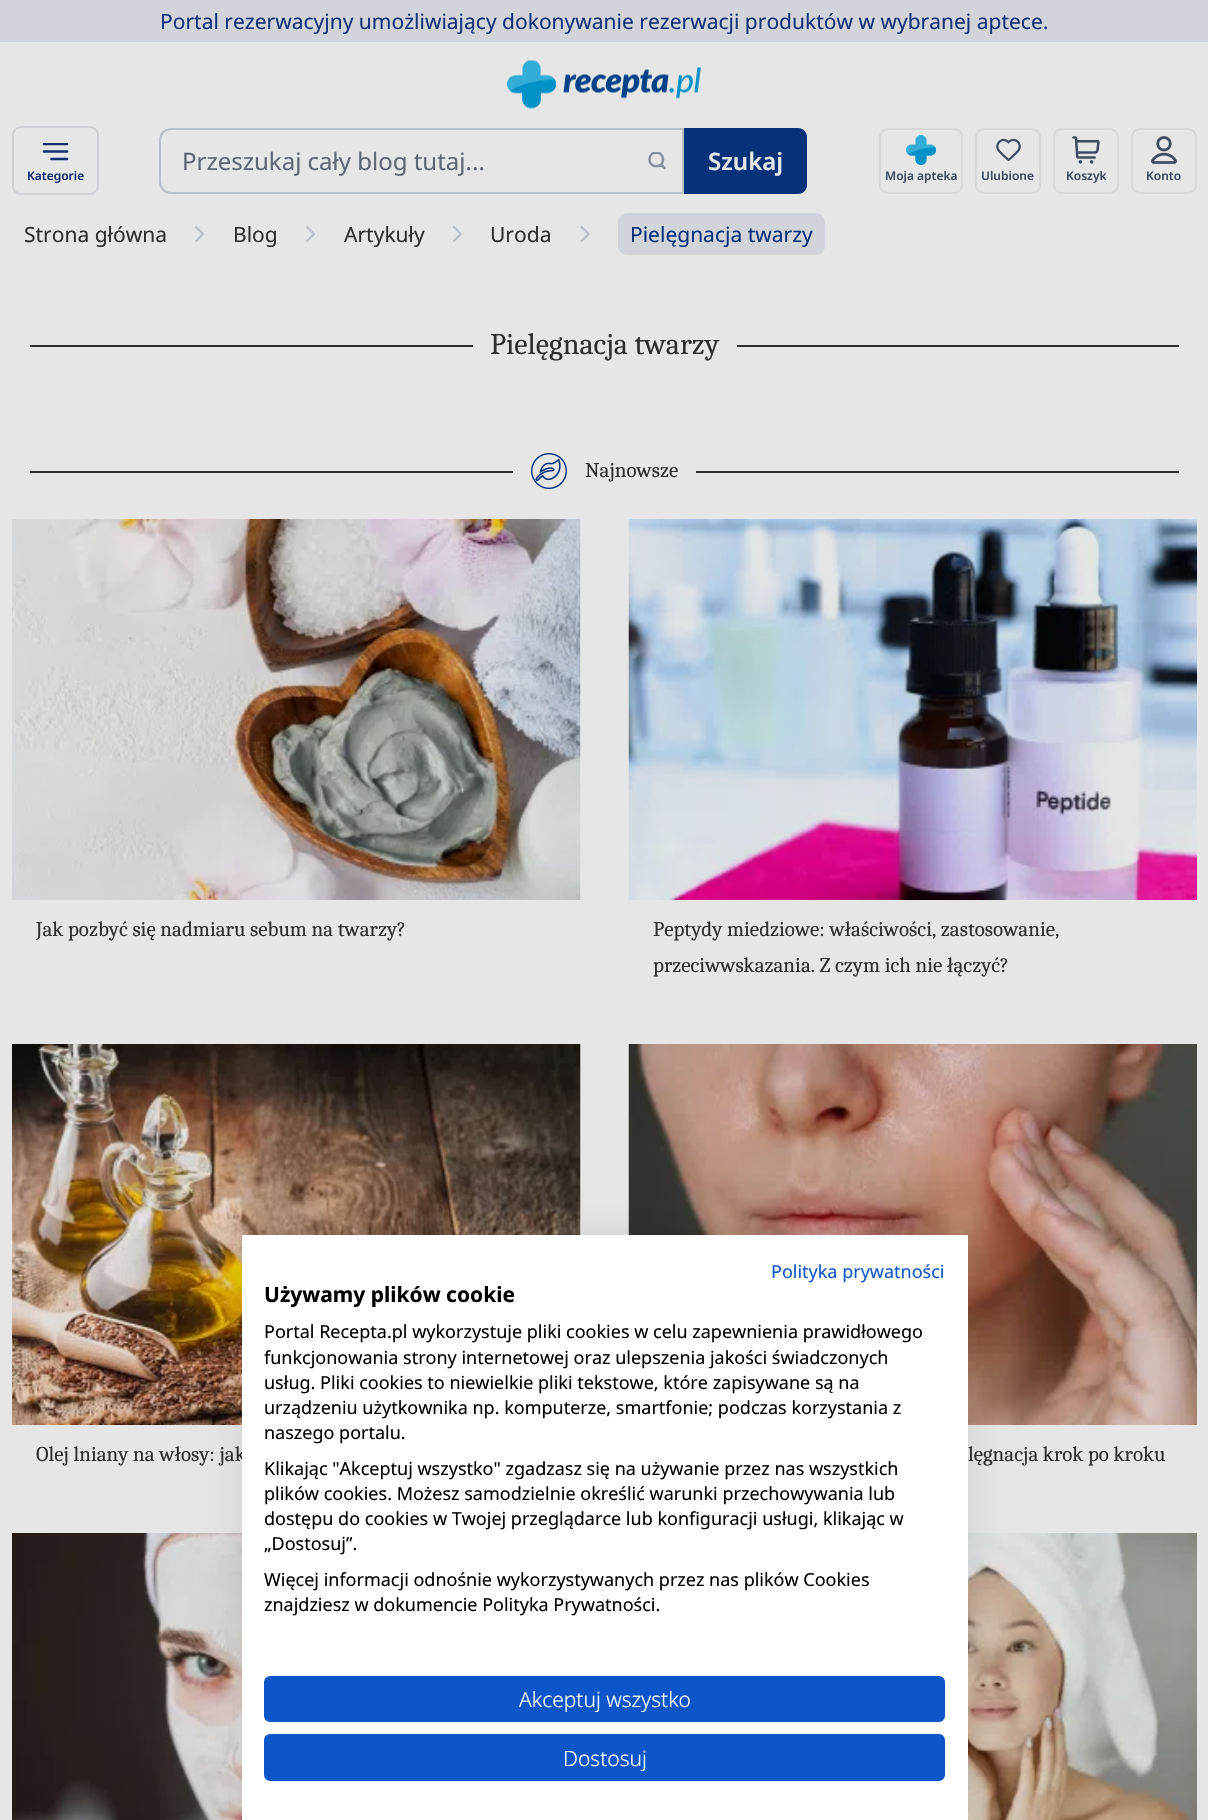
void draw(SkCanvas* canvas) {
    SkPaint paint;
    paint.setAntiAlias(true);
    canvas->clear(0xFFE6E6E6);
    paint.setColor(0xFFD1D4DB);
    canvas->drawRect(SkRect::MakeXYWH(0, 0, 1208, 42), paint);
    SkFont font1(fontMgr->matchFamilyStyle("Noto Sans", SkFontStyle::Normal()), 21);
    font1.setSubpixel(true);
    paint.setColor(0xFF153276);
    canvas->drawString("Portal rezerwacyjny umożliwiający dokonywanie rezerwacji produktów w wybranej aptece.", 160, 29, font1, paint);
    canvas->drawImageRect(SkImages::DeferredFromEncodedData(SkData::MakeFromFileName("img1.png")), SkRect::MakeXYWH(507, 60, 194, 49), SkSamplingOptions());
    paint.setStyle(SkPaint::kStroke_Style);
    paint.setStrokeWidth(2);
    paint.setColor(0xFFCED0D4);
    canvas->drawRoundRect(SkRect::MakeXYWH(13, 127, 85, 67), 8, 8, paint);
    canvas->save();
    canvas->clipRect(SkRect::MakeXYWH(42, 143, 27, 18));
    paint.setStrokeWidth(2.6f);
    paint.setStrokeCap(SkPaint::kRound_Cap);
    paint.setStrokeJoin(SkPaint::kRound_Join);
    paint.setColor(0xFF132D6B);
    canvas->drawPath(SkPathBuilder().moveTo(44, 151.5f).lineTo(67, 151.5f).moveTo(44, 144).lineTo(67, 144).moveTo(51.5f, 159).lineTo(67, 159).detach(), paint);
    canvas->restore();
    SkFont font2(fontMgr->matchFamilyStyle("Noto Sans", SkFontStyle(600, SkFontStyle::kNormal_Width, SkFontStyle::kUpright_Slant)), 12);
    font2.setSubpixel(true);
    paint.setStyle(SkPaint::kFill_Style);
    canvas->drawString("Kategorie", 27, 180, font2, paint);
    paint.setStyle(SkPaint::kStroke_Style);
    paint.setStrokeWidth(2);
    paint.setStrokeCap(SkPaint::kButt_Cap);
    paint.setStrokeJoin(SkPaint::kMiter_Join);
    paint.setColor(0xFFBBC0C7);
    canvas->drawPath(SkPathBuilder().moveTo(171, 129).lineTo(683, 129).lineTo(683, 193).lineTo(171, 193).cubicTo(165, 193, 160, 188, 160, 182).lineTo(160, 140).cubicTo(160, 134, 165, 129, 171, 129).close().detach(), paint);
    SkFont font3(fontMgr->matchFamilyStyle("Noto Sans", SkFontStyle::Normal()), 24);
    font3.setSubpixel(true);
    paint.setStyle(SkPaint::kFill_Style);
    paint.setColor(0xFF606773);
    canvas->drawString("Przeszukaj cały blog tutaj...", 182, 170, font3, paint);
    canvas->save();
    canvas->clipRect(SkRect::MakeXYWH(648, 152, 18, 18));
    paint.setStyle(SkPaint::kStroke_Style);
    paint.setStrokeWidth(2.6f);
    paint.setStrokeCap(SkPaint::kRound_Cap);
    paint.setStrokeJoin(SkPaint::kRound_Join);
    paint.setColor(0xFF8992A1);
    canvas->drawPath(SkPathBuilder().moveTo(664.5f, 168).lineTo(661, 164.5f).moveTo(663, 159.5f).cubicTo(663, 168.5f, 649.5f, 168.5f, 649.5f, 159.5f).cubicTo(649.5f, 150.5f, 663, 150.5f, 663, 159.5f).close().detach(), paint);
    canvas->restore();
    paint.setStyle(SkPaint::kFill_Style);
    paint.setColor(0xFF053279);
    canvas->drawPath(SkPathBuilder().moveTo(684, 128).lineTo(798, 128).cubicTo(803, 128, 807, 132, 807, 137).lineTo(807, 185).cubicTo(807, 190, 803, 194, 798, 194).lineTo(684, 194).close().detach(), paint);
    SkFont font4(fontMgr->matchFamilyStyle("Noto Sans", SkFontStyle(600, SkFontStyle::kNormal_Width, SkFontStyle::kUpright_Slant)), 24);
    font4.setSubpixel(true);
    paint.setColor(0xFFE6E6E6);
    canvas->drawString("Szukaj", 708, 170, font4, paint);
    paint.setStyle(SkPaint::kStroke_Style);
    paint.setStrokeWidth(2);
    paint.setStrokeCap(SkPaint::kButt_Cap);
    paint.setStrokeJoin(SkPaint::kMiter_Join);
    paint.setColor(0xFFD8D8D8);
    canvas->drawRoundRect(SkRect::MakeXYWH(880, 129, 82, 64), 8, 8, paint);
    canvas->drawImageRect(SkImages::DeferredFromEncodedData(SkData::MakeFromFileName("img2.png")), SkRect::MakeXYWH(906, 135, 30, 30), SkSamplingOptions());
    paint.setStyle(SkPaint::kFill_Style);
    paint.setColor(0xFF3F4B5E);
    canvas->drawString("Moja apteka", 885, 180, font2, paint);
    paint.setStyle(SkPaint::kStroke_Style);
    paint.setColor(0xFFD8D8D8);
    canvas->drawRoundRect(SkRect::MakeXYWH(976, 129, 64, 64), 8, 8, paint);
    canvas->drawImageRect(SkImages::DeferredFromEncodedData(SkData::MakeFromFileName("img3.png")), SkRect::MakeXYWH(996, 138, 25, 23), SkSamplingOptions());
    paint.setStyle(SkPaint::kFill_Style);
    paint.setColor(0xFF3F4B5E);
    canvas->drawString("Ulubione", 981, 180, font2, paint);
    paint.setStyle(SkPaint::kStroke_Style);
    paint.setColor(0xFFD8D8D8);
    canvas->drawRoundRect(SkRect::MakeXYWH(1054, 129, 64, 64), 8, 8, paint);
    canvas->drawImageRect(SkImages::DeferredFromEncodedData(SkData::MakeFromFileName("img4.png")), SkRect::MakeXYWH(1072, 136, 28, 28), SkSamplingOptions());
    paint.setStyle(SkPaint::kFill_Style);
    paint.setColor(0xFF3F4B5E);
    canvas->drawString("Koszyk", 1066, 180, font2, paint);
    paint.setStyle(SkPaint::kStroke_Style);
    paint.setColor(0xFFD8D8D8);
    canvas->drawRoundRect(SkRect::MakeXYWH(1132, 129, 64, 64), 8, 8, paint);
    canvas->drawImageRect(SkImages::DeferredFromEncodedData(SkData::MakeFromFileName("img5.png")), SkRect::MakeXYWH(1151, 136, 26, 28), SkSamplingOptions());
    paint.setStyle(SkPaint::kFill_Style);
    paint.setColor(0xFF3F4B5E);
    canvas->drawString("Konto", 1146, 180, font2, paint);
    paint.setColor(0xFF2E2E2E);
    canvas->drawString("Strona główna", 24, 242, font1, paint);
    paint.setStyle(SkPaint::kStroke_Style);
    paint.setStrokeWidth(2.4f);
    paint.setStrokeCap(SkPaint::kRound_Cap);
    paint.setStrokeJoin(SkPaint::kRound_Join);
    paint.setColor(0xFFBBC0C7);
    canvas->drawPath(SkPathBuilder().moveTo(196, 241).lineTo(203, 234).lineTo(196, 227).detach(), paint);
    paint.setStyle(SkPaint::kFill_Style);
    paint.setColor(0xFF2E2E2E);
    canvas->drawString("Blog", 233, 242, font1, paint);
    paint.setStyle(SkPaint::kStroke_Style);
    paint.setColor(0xFFBBC0C7);
    canvas->drawPath(SkPathBuilder().moveTo(307, 241).lineTo(314, 234).lineTo(307, 227).detach(), paint);
    paint.setStyle(SkPaint::kFill_Style);
    paint.setColor(0xFF2E2E2E);
    canvas->drawString("Artykuły", 344, 242, font1, paint);
    paint.setStyle(SkPaint::kStroke_Style);
    paint.setColor(0xFFBBC0C7);
    canvas->drawPath(SkPathBuilder().moveTo(454, 241).lineTo(461, 234).lineTo(454, 227).detach(), paint);
    paint.setStyle(SkPaint::kFill_Style);
    paint.setColor(0xFF2E2E2E);
    canvas->drawString("Uroda", 490, 242, font1, paint);
    paint.setStyle(SkPaint::kStroke_Style);
    paint.setColor(0xFFBBC0C7);
    canvas->drawPath(SkPathBuilder().moveTo(581.5f, 241).lineTo(588.5f, 234).lineTo(581.5f, 227).detach(), paint);
    paint.setStyle(SkPaint::kFill_Style);
    paint.setColor(0xFFD1D4DB);
    canvas->drawRoundRect(SkRect::MakeXYWH(618, 213, 207, 42), 9, 9, paint);
    paint.setColor(0xFF053279);
    canvas->drawString("Pielęgnacja twarzy", 630, 242, font1, paint);
    paint.setColor(0xFF2E2E2E);
    canvas->drawRect(SkRect::MakeXYWH(30, 345, 443, 2), paint);
    SkFont font5(fontMgr->matchFamilyStyle("Caladea", SkFontStyle::Normal()), 30);
    font5.setSubpixel(true);
    canvas->drawString("Pielęgnacja twarzy", 490, 354, font5, paint);
    canvas->drawRect(SkRect::MakeXYWH(737, 345, 442, 2), paint);
    canvas->drawRect(SkRect::MakeXYWH(30, 471, 483, 2), paint);
    canvas->drawImageRect(SkImages::DeferredFromEncodedData(SkData::MakeFromFileName("img6.png")), SkRect::MakeXYWH(531, 453, 36, 36), SkSamplingOptions());
    SkFont font6(fontMgr->matchFamilyStyle("Caladea", SkFontStyle::Normal()), 21);
    font6.setSubpixel(true);
    canvas->drawString("Najnowsze", 585, 477, font6, paint);
    canvas->drawRect(SkRect::MakeXYWH(696, 471, 483, 2), paint);
    canvas->drawImageRect(SkImages::DeferredFromEncodedData(SkData::MakeFromFileName("img7.png")), SkRect::MakeXYWH(12, 519, 569, 381), SkSamplingOptions());
    canvas->drawString("Jak pozbyć się nadmiaru sebum na twarzy?", 36, 936, font6, paint);
    canvas->drawImageRect(SkImages::DeferredFromEncodedData(SkData::MakeFromFileName("img8.png")), SkRect::MakeXYWH(628, 519, 569, 381), SkSamplingOptions());
    canvas->drawString("Peptydy miedziowe: właściwości, zastosowanie,", 653, 936, font6, paint);
    canvas->drawString("przeciwwskazania. Z czym ich nie łączyć?", 653, 972, font6, paint);
    canvas->drawImageRect(SkImages::DeferredFromEncodedData(SkData::MakeFromFileName("img9.png")), SkRect::MakeXYWH(12, 1044, 569, 381), SkSamplingOptions());
    canvas->drawString("Olej lniany na włosy: jak", 36, 1461, font6, paint);
    canvas->drawImageRect(SkImages::DeferredFromEncodedData(SkData::MakeFromFileName("img10.png")), SkRect::MakeXYWH(628, 1044, 569, 381), SkSamplingOptions());
    canvas->drawString("lęgnacja krok po kroku", 968, 1461, font6, paint);
    canvas->drawImageRect(SkImages::DeferredFromEncodedData(SkData::MakeFromFileName("img11.png")), SkRect::MakeXYWH(12, 1533, 230, 287), SkSamplingOptions());
    canvas->drawImageRect(SkImages::DeferredFromEncodedData(SkData::MakeFromFileName("img12.png")), SkRect::MakeXYWH(968, 1533, 229, 287), SkSamplingOptions());
    paint.setColor(0x1A000000);
    paint.setMaskFilter(SkMaskFilter::MakeBlur(kNormal_SkBlurStyle, 18));
    canvas->drawRect(SkRect::MakeXYWH(242, 1235, 726, 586), paint);
    paint.setMaskFilter(nullptr);
    paint.setColor(0xFFFFFFFF);
    canvas->drawRect(SkRect::MakeXYWH(242, 1235, 726, 585), paint);
    SkFont font7(fontMgr->matchFamilyStyle("Noto Sans", SkFontStyle::Normal()), 18);
    font7.setSubpixel(true);
    paint.setColor(0xFF0D56C9);
    canvas->drawString("Polityka prywatności", 771, 1278, font7, paint);
    SkFont font8(fontMgr->matchFamilyStyle("Noto Sans", SkFontStyle::Bold()), 21);
    font8.setSubpixel(true);
    paint.setColor(0xFF000000);
    canvas->drawString("Używamy plików cookie", 264, 1302, font8, paint);
    canvas->drawString("Portal Recepta.pl wykorzystuje pliki cookies w celu zapewnienia prawidłowego", 264, 1338, font7, paint);
    canvas->drawString("funkcjonowania strony internetowej oraz ulepszenia jakości świadczonych", 264, 1364, font7, paint);
    canvas->drawString("usług. Pliki cookies to niewielkie pliki tekstowe, które zapisywane są na", 264, 1389, font7, paint);
    canvas->drawString("urządzeniu użytkownika np. komputerze, smartfonie; podczas korzystania z", 264, 1414, font7, paint);
    canvas->drawString("naszego portalu.", 264, 1439, font7, paint);
    canvas->drawString("Klikając \"Akceptuj wszystko\" zgadzasz się na używanie przez nas wszystkich", 264, 1475, font7, paint);
    canvas->drawString("plików cookies. Możesz samodzielnie określić warunki przechowywania lub", 264, 1500, font7, paint);
    canvas->drawString("dostępu do cookies w Twojej przeglądarce lub konfiguracji usługi, klikając w", 264, 1525, font7, paint);
    canvas->drawString("„Dostosuj”.", 264, 1550, font7, paint);
    canvas->drawString("Więcej informacji odnośnie wykorzystywanych przez nas plików Cookies", 264, 1586, font7, paint);
    canvas->drawString("znajdziesz w dokumencie Polityka Prywatności.", 264, 1611, font7, paint);
    paint.setColor(0xFF0D56C9);
    canvas->drawRoundRect(SkRect::MakeXYWH(265, 1677, 679, 44), 5, 5, paint);
    paint.setStyle(SkPaint::kStroke_Style);
    paint.setStrokeWidth(2);
    paint.setStrokeCap(SkPaint::kButt_Cap);
    paint.setStrokeJoin(SkPaint::kMiter_Join);
    canvas->drawRoundRect(SkRect::MakeXYWH(265, 1677, 679, 44), 5, 5, paint);
    SkFont font9(fontMgr->matchFamilyStyle("Noto Sans", SkFontStyle(300, SkFontStyle::kNormal_Width, SkFontStyle::kUpright_Slant)), 21);
    font9.setSubpixel(true);
    paint.setStyle(SkPaint::kFill_Style);
    paint.setColor(0xFFFFFFFF);
    canvas->drawString("Akceptuj wszystko", 519, 1707, font9, paint);
    paint.setColor(0xFF0D56C9);
    canvas->drawRoundRect(SkRect::MakeXYWH(265, 1735, 679, 45), 5, 5, paint);
    paint.setStyle(SkPaint::kStroke_Style);
    canvas->drawRoundRect(SkRect::MakeXYWH(265, 1735, 679, 45), 5, 5, paint);
    paint.setStyle(SkPaint::kFill_Style);
    paint.setColor(0xFFFFFFFF);
    canvas->drawString("Dostosuj", 563, 1766, font9, paint);
}
